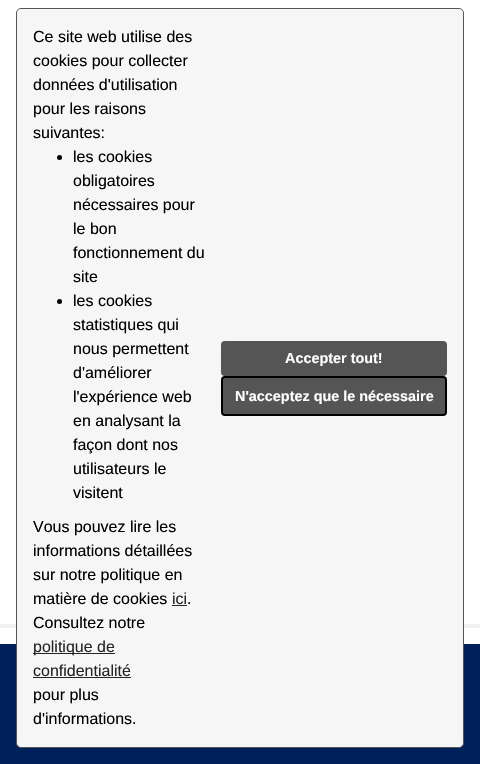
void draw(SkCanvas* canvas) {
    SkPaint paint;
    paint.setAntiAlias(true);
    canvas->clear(0xFFFFFFFF);
    paint.setStyle(SkPaint::kStroke_Style);
    paint.setStrokeWidth(4);
    paint.setColor(0xFFF2F2F2);
    canvas->drawRect(SkRect::MakeXYWH(-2, -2, 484, 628), paint);
    paint.setStyle(SkPaint::kFill_Style);
    paint.setColor(0xFF00205B);
    canvas->drawRect(SkRect::MakeXYWH(0, 644, 480, 120), paint);
    paint.setColor(0xFFF6F6F6);
    canvas->drawRoundRect(SkRect::MakeXYWH(16.5f, 8.5f, 447, 739), 4.5f, 4.5f, paint);
    paint.setStyle(SkPaint::kStroke_Style);
    paint.setStrokeWidth(1);
    paint.setColor(0xFF555555);
    canvas->drawRoundRect(SkRect::MakeXYWH(16.5f, 8.5f, 447, 739), 4.5f, 4.5f, paint);
    SkFont font1(fontMgr->matchFamilyStyle("Liberation Sans", SkFontStyle::Normal()), 16);
    font1.setSubpixel(true);
    paint.setStyle(SkPaint::kFill_Style);
    paint.setColor(0xFF000000);
    canvas->drawString("Ce site web utilise des", 33, 42, font1, paint);
    canvas->drawString("cookies pour collecter", 33, 66, font1, paint);
    canvas->drawString("données d'utilisation", 33, 90, font1, paint);
    canvas->drawString("pour les raisons", 33, 114, font1, paint);
    canvas->drawString("suivantes:", 33, 138, font1, paint);
    canvas->drawCircle(59.5f, 157.5f, 2.5f, paint);
    canvas->drawString("les cookies", 73, 162, font1, paint);
    canvas->drawString("obligatoires", 73, 186, font1, paint);
    canvas->drawString("nécessaires pour", 73, 210, font1, paint);
    canvas->drawString("le bon", 73, 234, font1, paint);
    canvas->drawString("fonctionnement du", 73, 258, font1, paint);
    canvas->drawString("site", 73, 282, font1, paint);
    canvas->drawCircle(59.5f, 301.5f, 2.5f, paint);
    canvas->drawString("les cookies", 73, 306, font1, paint);
    canvas->drawString("statistiques qui", 73, 330, font1, paint);
    canvas->drawString("nous permettent", 73, 354, font1, paint);
    canvas->drawString("d'améliorer", 73, 378, font1, paint);
    canvas->drawString("l'expérience web", 73, 402, font1, paint);
    canvas->drawString("en analysant la", 73, 426, font1, paint);
    canvas->drawString("façon dont nos", 73, 450, font1, paint);
    canvas->drawString("utilisateurs le", 73, 474, font1, paint);
    canvas->drawString("visitent", 73, 498, font1, paint);
    canvas->drawString("Vous pouvez lire les", 33, 532, font1, paint);
    canvas->drawString("informations détaillées", 33, 556, font1, paint);
    canvas->drawString("sur notre politique en", 33, 580, font1, paint);
    canvas->drawString("matière de cookies", 33, 604, font1, paint);
    paint.setColor(0xFF252525);
    canvas->drawString("ici", 172, 604, font1, paint);
    canvas->drawRect(SkRect::MakeXYWH(172, 605, 15, 1), paint);
    paint.setColor(0xFF000000);
    canvas->drawString(".", 187, 604, font1, paint);
    canvas->drawString("Consultez notre", 33, 628, font1, paint);
    paint.setColor(0xFF252525);
    canvas->drawRect(SkRect::MakeXYWH(33, 653, 82, 1), paint);
    canvas->drawString("politique de", 33, 652, font1, paint);
    canvas->drawString("confidentialité", 33, 676, font1, paint);
    canvas->drawRect(SkRect::MakeXYWH(33, 677, 98, 1), paint);
    paint.setColor(0xFF000000);
    canvas->drawString("pour plus", 33, 700, font1, paint);
    canvas->drawString("d'informations.", 33, 724, font1, paint);
    paint.setColor(0xFF555555);
    canvas->drawRoundRect(SkRect::MakeXYWH(221, 341, 226, 35), 4, 4, paint);
    SkFont font2(fontMgr->matchFamilyStyle("Liberation Sans", SkFontStyle::Bold()), 14.4f);
    font2.setSubpixel(true);
    paint.setColor(0xFFFFFFFF);
    canvas->drawString("Accepter tout!", 285, 363, font2, paint);
    paint.setColor(0xFF555555);
    canvas->drawRoundRect(SkRect::MakeXYWH(222, 377, 224, 38), 3, 3, paint);
    paint.setStyle(SkPaint::kStroke_Style);
    paint.setStrokeWidth(2);
    paint.setColor(0xFF000000);
    canvas->drawRoundRect(SkRect::MakeXYWH(222, 377, 224, 38), 3, 3, paint);
    paint.setStyle(SkPaint::kFill_Style);
    paint.setColor(0xFFFFFFFF);
    canvas->drawString("N'acceptez que le nécessaire", 235, 401, font2, paint);
}
